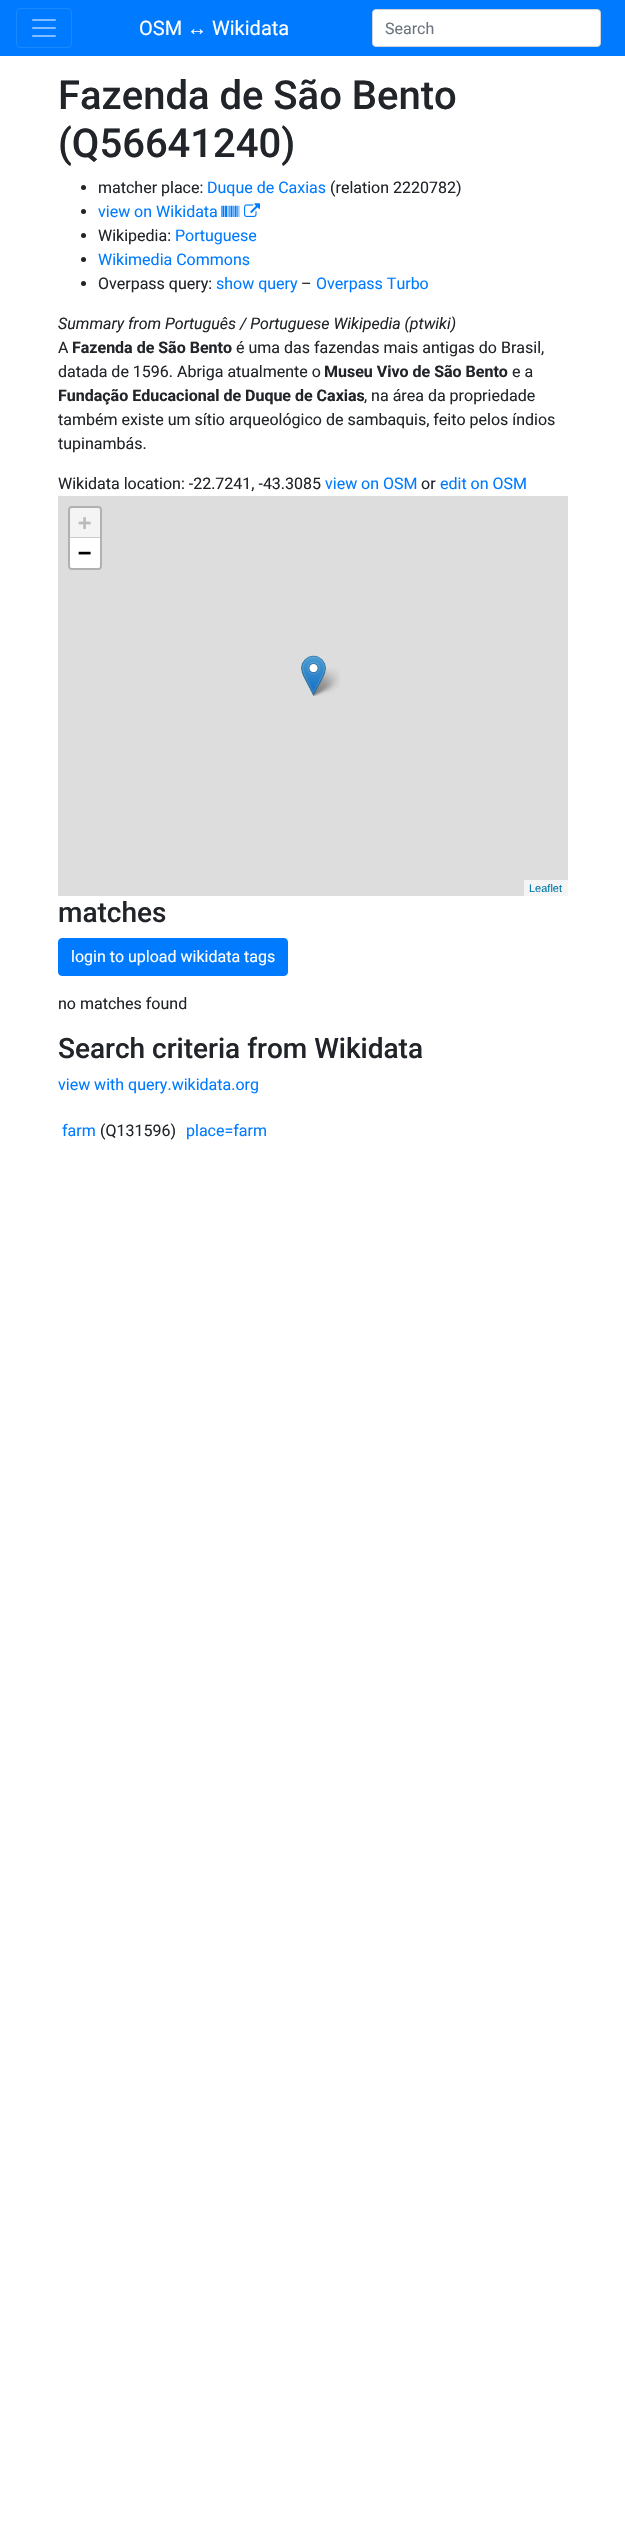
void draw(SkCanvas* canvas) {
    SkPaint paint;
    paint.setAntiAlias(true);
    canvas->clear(0xFFFFFFFF);
    paint.setColor(0xFF007BFF);
    canvas->drawRect(SkRect::MakeXYWH(0, 0, 625, 56), paint);
    paint.setStyle(SkPaint::kStroke_Style);
    paint.setStrokeWidth(1);
    paint.setColor(0xFF1A88FF);
    canvas->drawRoundRect(SkRect::MakeXYWH(16.5f, 8.5f, 55, 39), 3.5f, 3.5f, paint);
    canvas->drawImageRect(SkImages::DeferredFromEncodedData(SkData::MakeFromFileName("img1.png")), SkRect::MakeXYWH(32, 19, 24, 18), SkSamplingOptions());
    SkFont font1(fontMgr->matchFamilyStyle("Roboto", SkFontStyle::Normal()), 20);
    font1.setSubpixel(true);
    paint.setStyle(SkPaint::kFill_Style);
    paint.setColor(0xFFFFFFFF);
    canvas->drawString("OSM", 139, 35, font1, paint);
    SkFont font2(fontMgr->matchFamilyStyle("Liberation Sans", SkFontStyle::Normal()), 20);
    font2.setSubpixel(true);
    canvas->drawString("↔", 187, 35, font2, paint);
    canvas->drawString("Wikidata", 212, 35, font1, paint);
    canvas->drawRoundRect(SkRect::MakeXYWH(372.5f, 9.5f, 228, 37), 3.5f, 3.5f, paint);
    paint.setStyle(SkPaint::kStroke_Style);
    paint.setColor(0xFFCED4DA);
    canvas->drawRoundRect(SkRect::MakeXYWH(372.5f, 9.5f, 228, 37), 3.5f, 3.5f, paint);
    SkFont font3(fontMgr->matchFamilyStyle("Roboto", SkFontStyle::Normal()), 16);
    font3.setSubpixel(true);
    paint.setStyle(SkPaint::kFill_Style);
    paint.setColor(0xFF6C757D);
    canvas->drawString("Search", 385, 34, font3, paint);
    SkFont font4(fontMgr->matchFamilyStyle("Roboto", SkFontStyle(500, SkFontStyle::kNormal_Width, SkFontStyle::kUpright_Slant)), 40);
    font4.setSubpixel(true);
    paint.setColor(0xFF212529);
    canvas->drawString("Fazenda de São Bento", 58, 109, font4, paint);
    canvas->drawString("(Q56641240)", 58, 157, font4, paint);
    canvas->drawCircle(83.5f, 187.5f, 2.5f, paint);
    canvas->drawString("matcher place:", 98, 193, font3, paint);
    paint.setColor(0xFF007BFF);
    canvas->drawString("Duque de Caxias", 207, 193, font3, paint);
    paint.setColor(0xFF212529);
    canvas->drawString("(relation 2220782)", 330, 193, font3, paint);
    canvas->drawCircle(83.5f, 211.5f, 2.5f, paint);
    paint.setColor(0xFF007BFF);
    canvas->drawString("view on Wikidata", 98, 217, font3, paint);
    canvas->drawImageRect(SkImages::DeferredFromEncodedData(SkData::MakeFromFileName("img2.png")), SkRect::MakeXYWH(221, 205, 19, 12), SkSamplingOptions());
    canvas->drawImageRect(SkImages::DeferredFromEncodedData(SkData::MakeFromFileName("img3.png")), SkRect::MakeXYWH(244, 203, 16, 14), SkSamplingOptions());
    paint.setColor(0xFF212529);
    canvas->drawCircle(83.5f, 235.5f, 2.5f, paint);
    canvas->drawString("Wikipedia:", 98, 241, font3, paint);
    paint.setColor(0xFF007BFF);
    canvas->drawString("Portuguese", 175, 241, font3, paint);
    paint.setColor(0xFF212529);
    canvas->drawCircle(83.5f, 259.5f, 2.5f, paint);
    paint.setColor(0xFF007BFF);
    canvas->drawString("Wikimedia Commons", 98, 265, font3, paint);
    paint.setColor(0xFF212529);
    canvas->drawCircle(83.5f, 283.5f, 2.5f, paint);
    canvas->drawString("Overpass query:", 98, 289, font3, paint);
    paint.setColor(0xFF007BFF);
    canvas->drawString("show query", 216, 289, font3, paint);
    paint.setColor(0xFF212529);
    canvas->drawString("–", 301, 289, font3, paint);
    paint.setColor(0xFF007BFF);
    canvas->drawString("Overpass Turbo", 316, 289, font3, paint);
    SkFont font5(fontMgr->matchFamilyStyle("Roboto", SkFontStyle::Italic()), 16);
    font5.setSubpixel(true);
    paint.setColor(0xFF212529);
    canvas->drawString("Summary from Português / Portuguese Wikipedia (ptwiki)", 58, 329, font5, paint);
    canvas->drawString("A", 58, 353, font3, paint);
    SkFont font6(fontMgr->matchFamilyStyle("Roboto", SkFontStyle::Bold()), 16);
    font6.setSubpixel(true);
    canvas->drawString("Fazenda de São Bento", 72, 353, font6, paint);
    canvas->drawString("é uma das fazendas mais antigas do Brasil,", 236, 353, font3, paint);
    canvas->drawString("datada de 1596. Abriga atualmente o", 58, 377, font3, paint);
    canvas->drawString("Museu Vivo de São Bento", 324, 377, font6, paint);
    canvas->drawString("e a", 512, 377, font3, paint);
    canvas->drawString("Fundação Educacional de Duque de Caxias", 58, 401, font6, paint);
    canvas->drawString(", na área da propriedade", 364, 401, font3, paint);
    canvas->drawString("também existe um sítio arqueológico de sambaquis, feito pelos índios", 58, 425, font3, paint);
    canvas->drawString("tupinambás.", 58, 449, font3, paint);
    canvas->drawString("Wikidata location: -22.7241, -43.3085", 58, 489, font3, paint);
    paint.setColor(0xFF007BFF);
    canvas->drawString("view on OSM", 325, 489, font3, paint);
    paint.setColor(0xFF212529);
    canvas->drawString("or", 421, 489, font3, paint);
    paint.setColor(0xFF007BFF);
    canvas->drawString("edit on OSM", 440, 489, font3, paint);
    paint.setColor(0xFFDDDDDD);
    canvas->drawRect(SkRect::MakeXYWH(58, 496, 510, 400), paint);
    paint.setStyle(SkPaint::kStroke_Style);
    paint.setStrokeWidth(2);
    paint.setColor(0xFFB1B1B1);
    canvas->drawRoundRect(SkRect::MakeXYWH(69, 507, 32, 62), 3, 3, paint);
    paint.setStyle(SkPaint::kFill_Style);
    paint.setColor(0xFFF4F4F4);
    canvas->drawPath(SkPathBuilder().moveTo(72, 508).lineTo(98, 508).cubicTo(99, 508, 100, 509, 100, 510).lineTo(100, 538).lineTo(70, 538).lineTo(70, 510).cubicTo(70, 509, 71, 508, 72, 508).close().detach(), paint);
    paint.setColor(0xFFCCCCCC);
    canvas->drawRect(SkRect::MakeXYWH(70, 537, 30, 1), paint);
    SkFont font7(fontMgr->matchFamilyStyle("DejaVu Sans Mono", SkFontStyle::Bold()), 22);
    font7.setSubpixel(true);
    paint.setColor(0xFFBBBBBB);
    canvas->drawString("+", 78, 530, font7, paint);
    paint.setColor(0xFFFFFFFF);
    canvas->drawPath(SkPathBuilder().moveTo(70, 538).lineTo(100, 538).lineTo(100, 566).cubicTo(100, 567, 99, 568, 98, 568).lineTo(72, 568).cubicTo(71, 568, 70, 567, 70, 566).close().detach(), paint);
    paint.setColor(0xFF000000);
    canvas->drawString("−", 78, 560, font7, paint);
    paint.setColor(0xFFF5F5F5);
    canvas->drawRect(SkRect::MakeXYWH(524, 880, 44, 16), paint);
    SkFont font8(fontMgr->matchFamilyStyle("Liberation Sans", SkFontStyle::Normal()), 11);
    font8.setSubpixel(true);
    paint.setColor(0xFF0078A8);
    canvas->drawString("Leaflet", 529, 892, font8, paint);
    canvas->drawImageRect(SkImages::DeferredFromEncodedData(SkData::MakeFromFileName("img5.png")), SkRect::MakeXYWH(311, 668, 29, 28), SkSamplingOptions());
    canvas->drawImageRect(SkImages::DeferredFromEncodedData(SkData::MakeFromFileName("img4.png")), SkRect::MakeXYWH(301, 655, 25, 41), SkSamplingOptions());
    SkFont font9(fontMgr->matchFamilyStyle("Roboto", SkFontStyle(500, SkFontStyle::kNormal_Width, SkFontStyle::kUpright_Slant)), 28);
    font9.setSubpixel(true);
    paint.setColor(0xFF212529);
    canvas->drawString("matches", 58, 922, font9, paint);
    paint.setColor(0xFF007BFF);
    canvas->drawRoundRect(SkRect::MakeXYWH(58.5f, 938.5f, 229, 37), 3.5f, 3.5f, paint);
    paint.setStyle(SkPaint::kStroke_Style);
    paint.setStrokeWidth(1);
    canvas->drawRoundRect(SkRect::MakeXYWH(58.5f, 938.5f, 229, 37), 3.5f, 3.5f, paint);
    paint.setStyle(SkPaint::kFill_Style);
    paint.setColor(0xFFFFFFFF);
    canvas->drawString("login to upload wikidata tags", 71, 962, font3, paint);
    paint.setColor(0xFF212529);
    canvas->drawString("no matches found", 58, 1009, font3, paint);
    canvas->drawString("Search criteria from Wikidata", 58, 1058, font9, paint);
    paint.setColor(0xFF007BFF);
    canvas->drawString("view with query.wikidata.org", 58, 1090, font3, paint);
    canvas->drawString("farm", 62, 1136, font3, paint);
    paint.setColor(0xFF212529);
    canvas->drawString("(Q131596)", 100, 1136, font3, paint);
    paint.setColor(0xFF007BFF);
    canvas->drawString("place=farm", 186, 1136, font3, paint);
}
